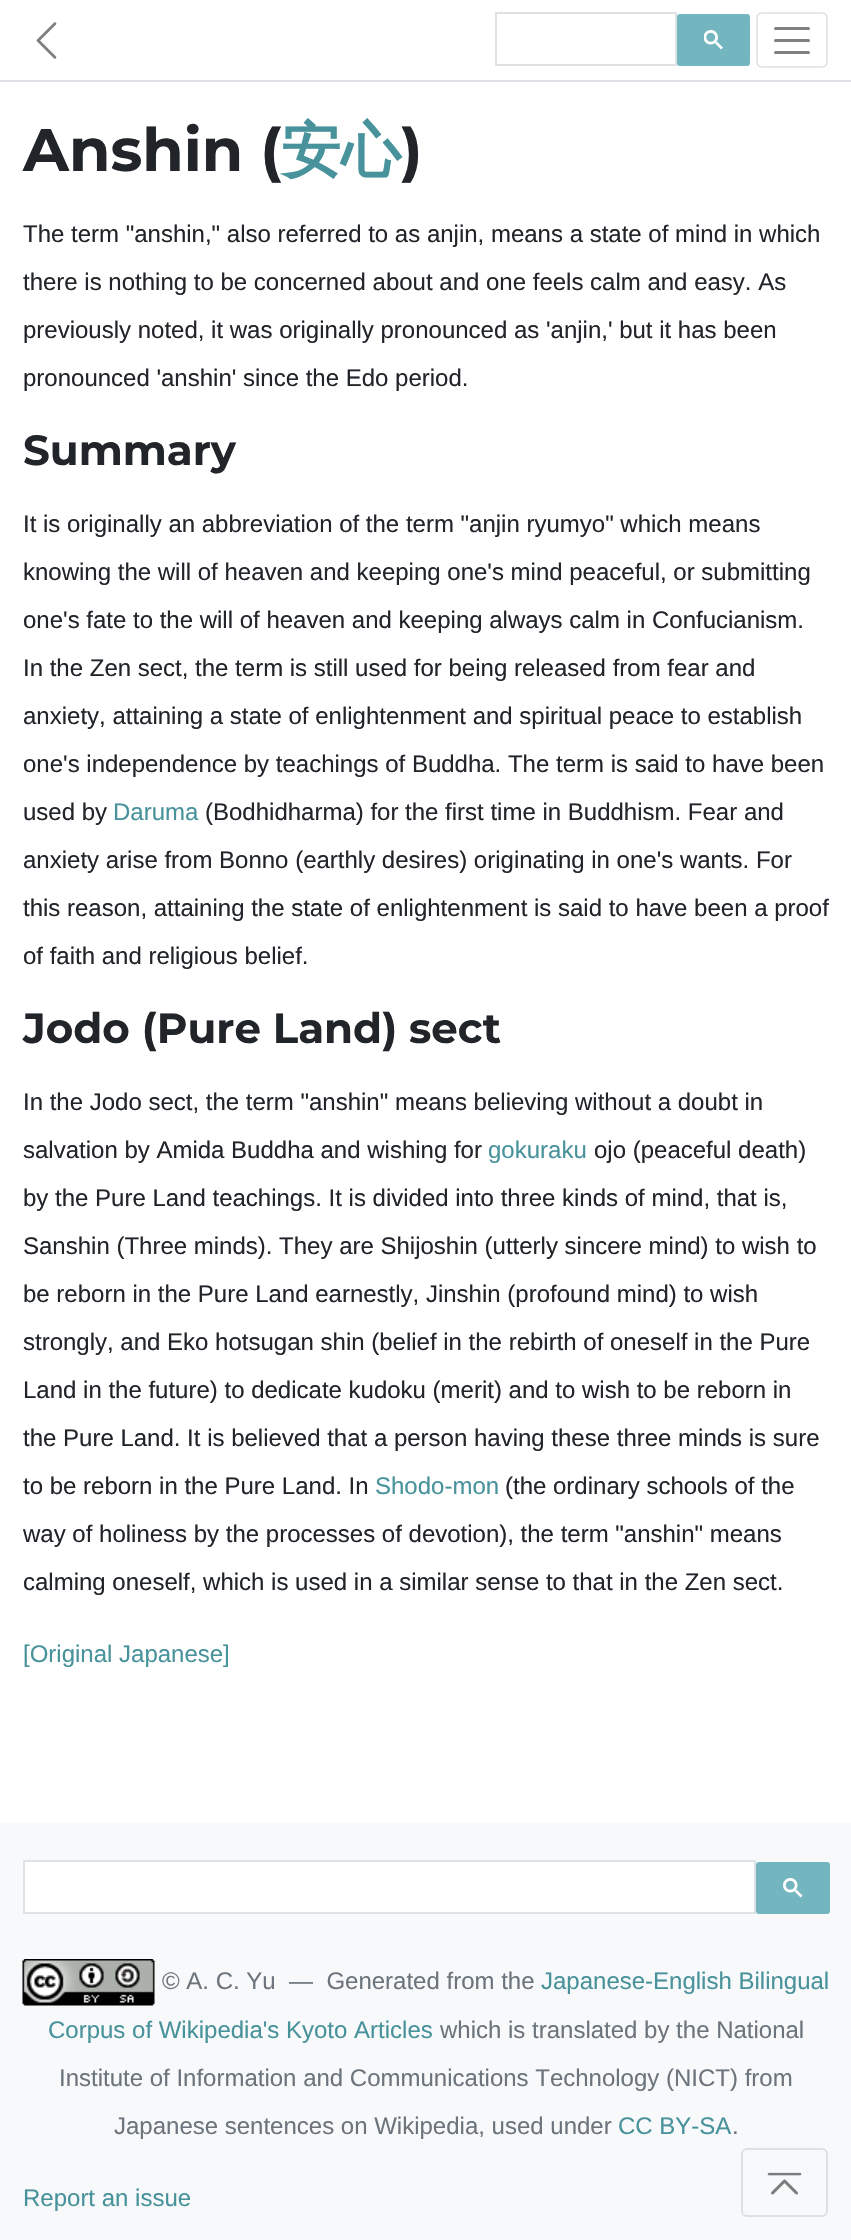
void draw(SkCanvas* canvas) {
    SkPaint paint;
    paint.setAntiAlias(true);
    canvas->clear(0xFFFFFFFF);
    paint.setColor(0xFFDEE2E6);
    canvas->drawRect(SkRect::MakeXYWH(0, 80, 851, 2), paint);
    canvas->drawImageRect(SkImages::DeferredFromEncodedData(SkData::MakeFromFileName("img1.png")), SkRect::MakeXYWH(36, 22, 21, 37), SkSamplingOptions());
    paint.setStyle(SkPaint::kStroke_Style);
    paint.setStrokeWidth(2);
    paint.setColor(0xFFDFE1E5);
    canvas->drawRect(SkRect::MakeXYWH(496, 13, 180, 52), paint);
    paint.setStyle(SkPaint::kFill_Style);
    paint.setColor(0xFF73B6BF);
    canvas->drawRoundRect(SkRect::MakeXYWH(678, 15, 71, 50), 2, 2, paint);
    paint.setStyle(SkPaint::kStroke_Style);
    canvas->drawRoundRect(SkRect::MakeXYWH(678, 15, 71, 50), 2, 2, paint);
    canvas->drawImageRect(SkImages::DeferredFromEncodedData(SkData::MakeFromFileName("img2.png")), SkRect::MakeXYWH(704, 30, 19, 20), SkSamplingOptions());
    paint.setColor(0xFFE6E6E6);
    canvas->drawRoundRect(SkRect::MakeXYWH(757, 13, 70, 54), 5, 5, paint);
    paint.setStrokeWidth(3);
    paint.setStrokeCap(SkPaint::kRound_Cap);
    paint.setColor(0xFF808080);
    canvas->drawPath(SkPathBuilder().moveTo(775.5f, 28.5f).lineTo(808.5f, 28.5f).moveTo(775.5f, 40.5f).lineTo(808.5f, 40.5f).moveTo(775.5f, 52.5f).lineTo(808.5f, 52.5f).detach(), paint);
    SkFont font1(fontMgr->matchFamilyStyle("Montserrat", SkFontStyle::Bold()), 60);
    font1.setSubpixel(true);
    paint.setStyle(SkPaint::kFill_Style);
    paint.setColor(0xFF212529);
    canvas->drawString("Anshin (", 23, 171, font1, paint);
    SkFont font2(fontMgr->matchFamilyStyle("WenQuanYi Zen Hei", SkFontStyle::Bold()), 60);
    font2.setSubpixel(true);
    paint.setColor(0xFF48929B);
    canvas->drawString("安心", 281, 171, font2, paint);
    paint.setColor(0xFF212529);
    canvas->drawString(")", 401, 171, font1, paint);
    SkFont font3(fontMgr->matchFamilyStyle("Liberation Sans", SkFontStyle::Normal()), 24);
    font3.setSubpixel(true);
    canvas->drawString("The term \"anshin,\" also referred to as anjin, means a state of mind in which", 23, 242, font3, paint);
    canvas->drawString("there is nothing to be concerned about and one feels calm and easy. As", 23, 290, font3, paint);
    canvas->drawString("previously noted, it was originally pronounced as 'anjin,' but it has been", 23, 338, font3, paint);
    canvas->drawString("pronounced 'anshin' since the Edo period.", 23, 386, font3, paint);
    SkFont font4(fontMgr->matchFamilyStyle("Montserrat", SkFontStyle::Bold()), 42);
    font4.setSubpixel(true);
    canvas->drawString("Summary", 23, 465, font4, paint);
    canvas->drawString("It is originally an abbreviation of the term \"anjin ryumyo\" which means", 23, 532, font3, paint);
    canvas->drawString("knowing the will of heaven and keeping one's mind peaceful, or submitting", 23, 580, font3, paint);
    canvas->drawString("one's fate to the will of heaven and keeping always calm in Confucianism.", 23, 628, font3, paint);
    canvas->drawString("In the Zen sect, the term is still used for being released from fear and", 23, 676, font3, paint);
    canvas->drawString("anxiety, attaining a state of enlightenment and spiritual peace to establish", 23, 724, font3, paint);
    canvas->drawString("one's independence by teachings of Buddha. The term is said to have been", 23, 772, font3, paint);
    canvas->drawString("used by", 23, 820, font3, paint);
    paint.setColor(0xFF48929B);
    canvas->drawString("Daruma", 113, 820, font3, paint);
    paint.setColor(0xFF212529);
    canvas->drawString("(Bodhidharma) for the first time in Buddhism. Fear and", 205, 820, font3, paint);
    canvas->drawString("anxiety arise from Bonno (earthly desires) originating in one's wants. For", 23, 868, font3, paint);
    canvas->drawString("this reason, attaining the state of enlightenment is said to have been a proof", 23, 916, font3, paint);
    canvas->drawString("of faith and religious belief.", 23, 964, font3, paint);
    canvas->drawString("Jodo (Pure Land) sect", 23, 1043, font4, paint);
    canvas->drawString("In the Jodo sect, the term \"anshin\" means believing without a doubt in", 23, 1110, font3, paint);
    canvas->drawString("salvation by Amida Buddha and wishing for", 23, 1158, font3, paint);
    paint.setColor(0xFF48929B);
    canvas->drawString("gokuraku", 488, 1158, font3, paint);
    paint.setColor(0xFF212529);
    canvas->drawString("ojo (peaceful death)", 594, 1158, font3, paint);
    canvas->drawString("by the Pure Land teachings. It is divided into three kinds of mind, that is,", 23, 1206, font3, paint);
    canvas->drawString("Sanshin (Three minds). They are Shijoshin (utterly sincere mind) to wish to", 23, 1254, font3, paint);
    canvas->drawString("be reborn in the Pure Land earnestly, Jinshin (profound mind) to wish", 23, 1302, font3, paint);
    canvas->drawString("strongly, and Eko hotsugan shin (belief in the rebirth of oneself in the Pure", 23, 1350, font3, paint);
    canvas->drawString("Land in the future) to dedicate kudoku (merit) and to wish to be reborn in", 23, 1398, font3, paint);
    canvas->drawString("the Pure Land. It is believed that a person having these three minds is sure", 23, 1446, font3, paint);
    canvas->drawString("to be reborn in the Pure Land. In", 23, 1494, font3, paint);
    paint.setColor(0xFF48929B);
    canvas->drawString("Shodo-mon", 375, 1494, font3, paint);
    paint.setColor(0xFF212529);
    canvas->drawString("(the ordinary schools of the", 505, 1494, font3, paint);
    canvas->drawString("way of holiness by the processes of devotion), the term \"anshin\" means", 23, 1542, font3, paint);
    canvas->drawString("calming oneself, which is used in a similar sense to that in the Zen sect.", 23, 1590, font3, paint);
    paint.setColor(0xFF48929B);
    canvas->drawString("[Original Japanese]", 23, 1662, font3, paint);
    paint.setColor(0xFFF8F9FA);
    canvas->drawRect(SkRect::MakeXYWH(0, 1823, 851, 417), paint);
    paint.setColor(0xFFFFFFFF);
    canvas->drawRect(SkRect::MakeXYWH(24, 1861, 731, 52), paint);
    paint.setStyle(SkPaint::kStroke_Style);
    paint.setStrokeWidth(2);
    paint.setStrokeCap(SkPaint::kButt_Cap);
    paint.setColor(0xFFDFE1E5);
    canvas->drawRect(SkRect::MakeXYWH(24, 1861, 731, 52), paint);
    paint.setStyle(SkPaint::kFill_Style);
    paint.setColor(0xFF73B6BF);
    canvas->drawRoundRect(SkRect::MakeXYWH(757, 1863, 72, 50), 2, 2, paint);
    paint.setStyle(SkPaint::kStroke_Style);
    canvas->drawRoundRect(SkRect::MakeXYWH(757, 1863, 72, 50), 2, 2, paint);
    canvas->drawImageRect(SkImages::DeferredFromEncodedData(SkData::MakeFromFileName("img3.png")), SkRect::MakeXYWH(783, 1878, 20, 20), SkSamplingOptions());
    canvas->drawImageRect(SkImages::DeferredFromEncodedData(SkData::MakeFromFileName("img4.png")), SkRect::MakeXYWH(22, 1959, 133, 47), SkSamplingOptions());
    paint.setStyle(SkPaint::kFill_Style);
    paint.setColor(0xFF6C757D);
    canvas->drawString("© A. C. Yu  —  Generated from the", 162, 1989, font3, paint);
    paint.setColor(0xFF48929B);
    canvas->drawString("Japanese-English Bilingual", 541, 1989, font3, paint);
    canvas->drawString("Corpus of Wikipedia's Kyoto Articles", 48, 2038, font3, paint);
    paint.setColor(0xFF6C757D);
    canvas->drawString("which is translated by the National", 440, 2038, font3, paint);
    canvas->drawString("Institute of Information and Communications Technology (NICT) from", 59, 2086, font3, paint);
    canvas->drawString("Japanese sentences on Wikipedia, used under", 114, 2134, font3, paint);
    paint.setColor(0xFF48929B);
    canvas->drawString("CC BY-SA", 618, 2134, font3, paint);
    paint.setColor(0xFF6C757D);
    canvas->drawString(".", 732, 2134, font3, paint);
    paint.setColor(0xFF48929B);
    canvas->drawString("Report an issue", 23, 2206, font3, paint);
    paint.setStyle(SkPaint::kStroke_Style);
    paint.setColor(0xFFDFE0E1);
    canvas->drawRoundRect(SkRect::MakeXYWH(742, 2149, 85, 67), 5, 5, paint);
    canvas->drawImageRect(SkImages::DeferredFromEncodedData(SkData::MakeFromFileName("img5.png")), SkRect::MakeXYWH(767, 2172, 35, 23), SkSamplingOptions());
}
